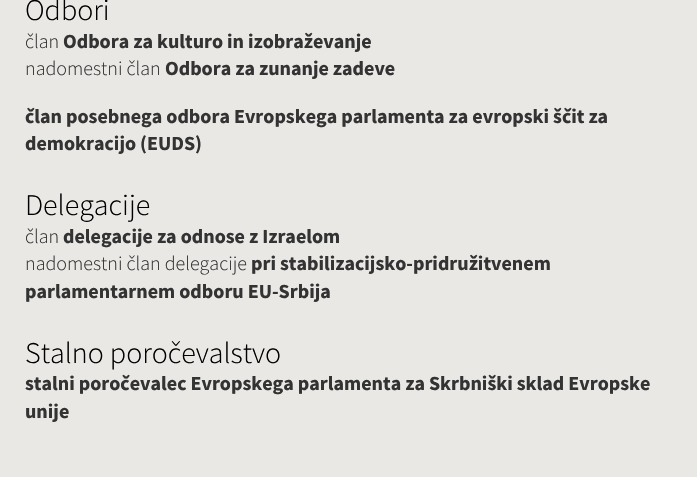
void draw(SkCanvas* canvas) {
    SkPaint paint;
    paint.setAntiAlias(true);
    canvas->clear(0xFFEAE8E5);
    SkFont font1(fontMgr->matchFamilyStyle("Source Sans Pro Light", SkFontStyle(300, SkFontStyle::kNormal_Width, SkFontStyle::kUpright_Slant)), 30);
    font1.setSubpixel(true);
    paint.setColor(0xFF000000);
    canvas->drawString("Odbori", 25, 20, font1, paint);
    SkFont font2(fontMgr->matchFamilyStyle("Source Sans Pro Light", SkFontStyle(300, SkFontStyle::kNormal_Width, SkFontStyle::kUpright_Slant)), 20);
    font2.setSubpixel(true);
    paint.setColor(0xFF333333);
    canvas->drawString("član", 25, 48, font2, paint);
    SkFont font3(fontMgr->matchFamilyStyle("Source Sans Pro", SkFontStyle::Bold()), 20);
    font3.setSubpixel(true);
    canvas->drawString("Odbora za kulturo in izobraževanje", 63, 48, font3, paint);
    canvas->drawString("nadomestni član", 25, 75, font2, paint);
    canvas->drawString("Odbora za zunanje zadeve", 165, 75, font3, paint);
    canvas->drawString("član posebnega odbora Evropskega parlamenta za evropski ščit za", 25, 123, font3, paint);
    canvas->drawString("demokracijo (EUDS)", 25, 150, font3, paint);
    paint.setColor(0xFF000000);
    canvas->drawString("Delegacije", 25, 215, font1, paint);
    paint.setColor(0xFF333333);
    canvas->drawString("član", 25, 243, font2, paint);
    canvas->drawString("delegacije za odnose z Izraelom", 63, 243, font3, paint);
    canvas->drawString("nadomestni član delegacije", 25, 270, font2, paint);
    canvas->drawString("pri stabilizacijsko-pridružitvenem", 251, 270, font3, paint);
    canvas->drawString("parlamentarnem odboru EU-Srbija", 25, 298, font3, paint);
    paint.setColor(0xFF000000);
    canvas->drawString("Stalno poročevalstvo", 25, 363, font1, paint);
    paint.setColor(0xFF333333);
    canvas->drawString("stalni poročevalec Evropskega parlamenta za Skrbniški sklad Evropske", 25, 390, font3, paint);
    canvas->drawString("unije", 25, 418, font3, paint);
}
